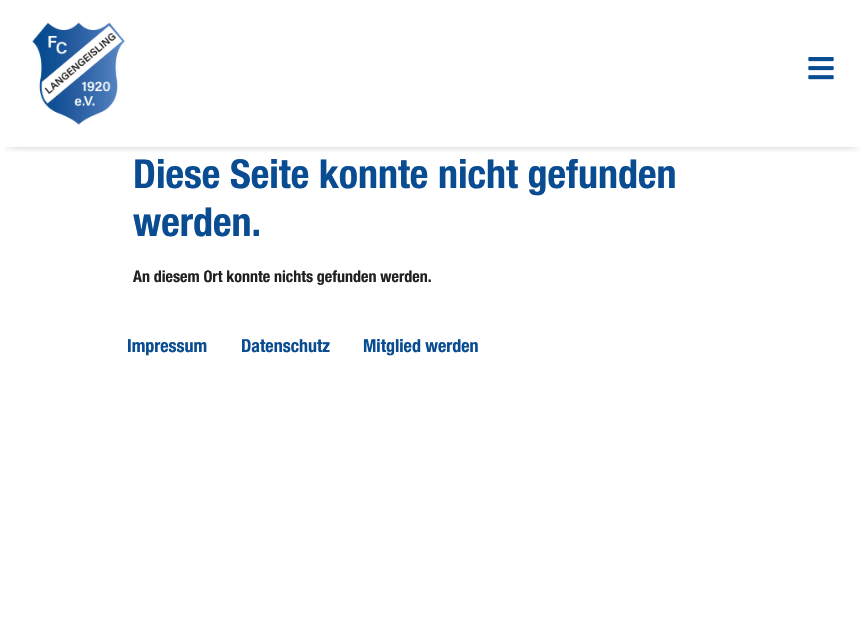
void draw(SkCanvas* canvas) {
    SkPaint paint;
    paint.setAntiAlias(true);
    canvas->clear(0xFFFFFFFF);
    canvas->save();
    canvas->clipRect(SkRect::MakeXYWH(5, 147, 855, 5));
    paint.setColor(0x80000000);
    paint.setMaskFilter(SkMaskFilter::MakeBlur(kNormal_SkBlurStyle, 5));
    canvas->drawRect(SkRect::MakeXYWH(9, 14, 847, 129), paint);
    paint.setMaskFilter(nullptr);
    canvas->restore();
    canvas->drawImageRect(SkImages::DeferredFromEncodedData(SkData::MakeFromFileName("img1.png")), SkRect::MakeXYWH(32, 22, 93, 103), SkSamplingOptions());
    canvas->drawImageRect(SkImages::DeferredFromEncodedData(SkData::MakeFromFileName("img2.png")), SkRect::MakeXYWH(808, 57, 26, 23), SkSamplingOptions());
    SkFont font1(fontMgr->matchFamilyStyle("Helvetica Neue", SkFontStyle::Bold()), 40);
    font1.setSubpixel(true);
    paint.setColor(0xFF094C91);
    canvas->drawString("Diese Seite konnte nicht gefunden", 133, 188, font1, paint);
    canvas->drawString("werden.", 133, 236, font1, paint);
    SkFont font2(fontMgr->matchFamilyStyle("Helvetica Neue", SkFontStyle::Bold()), 16);
    font2.setSubpixel(true);
    paint.setColor(0xFF212121);
    canvas->drawString("An diesem Ort konnte nichts gefunden werden.", 133, 282, font2, paint);
    SkFont font3(fontMgr->matchFamilyStyle("Helvetica Neue", SkFontStyle::Bold()), 18);
    font3.setSubpixel(true);
    paint.setColor(0xFF094C91);
    canvas->drawString("Impressum", 127, 352, font3, paint);
    canvas->drawString("Datenschutz", 241, 352, font3, paint);
    canvas->drawString("Mitglied werden", 363, 352, font3, paint);
}
